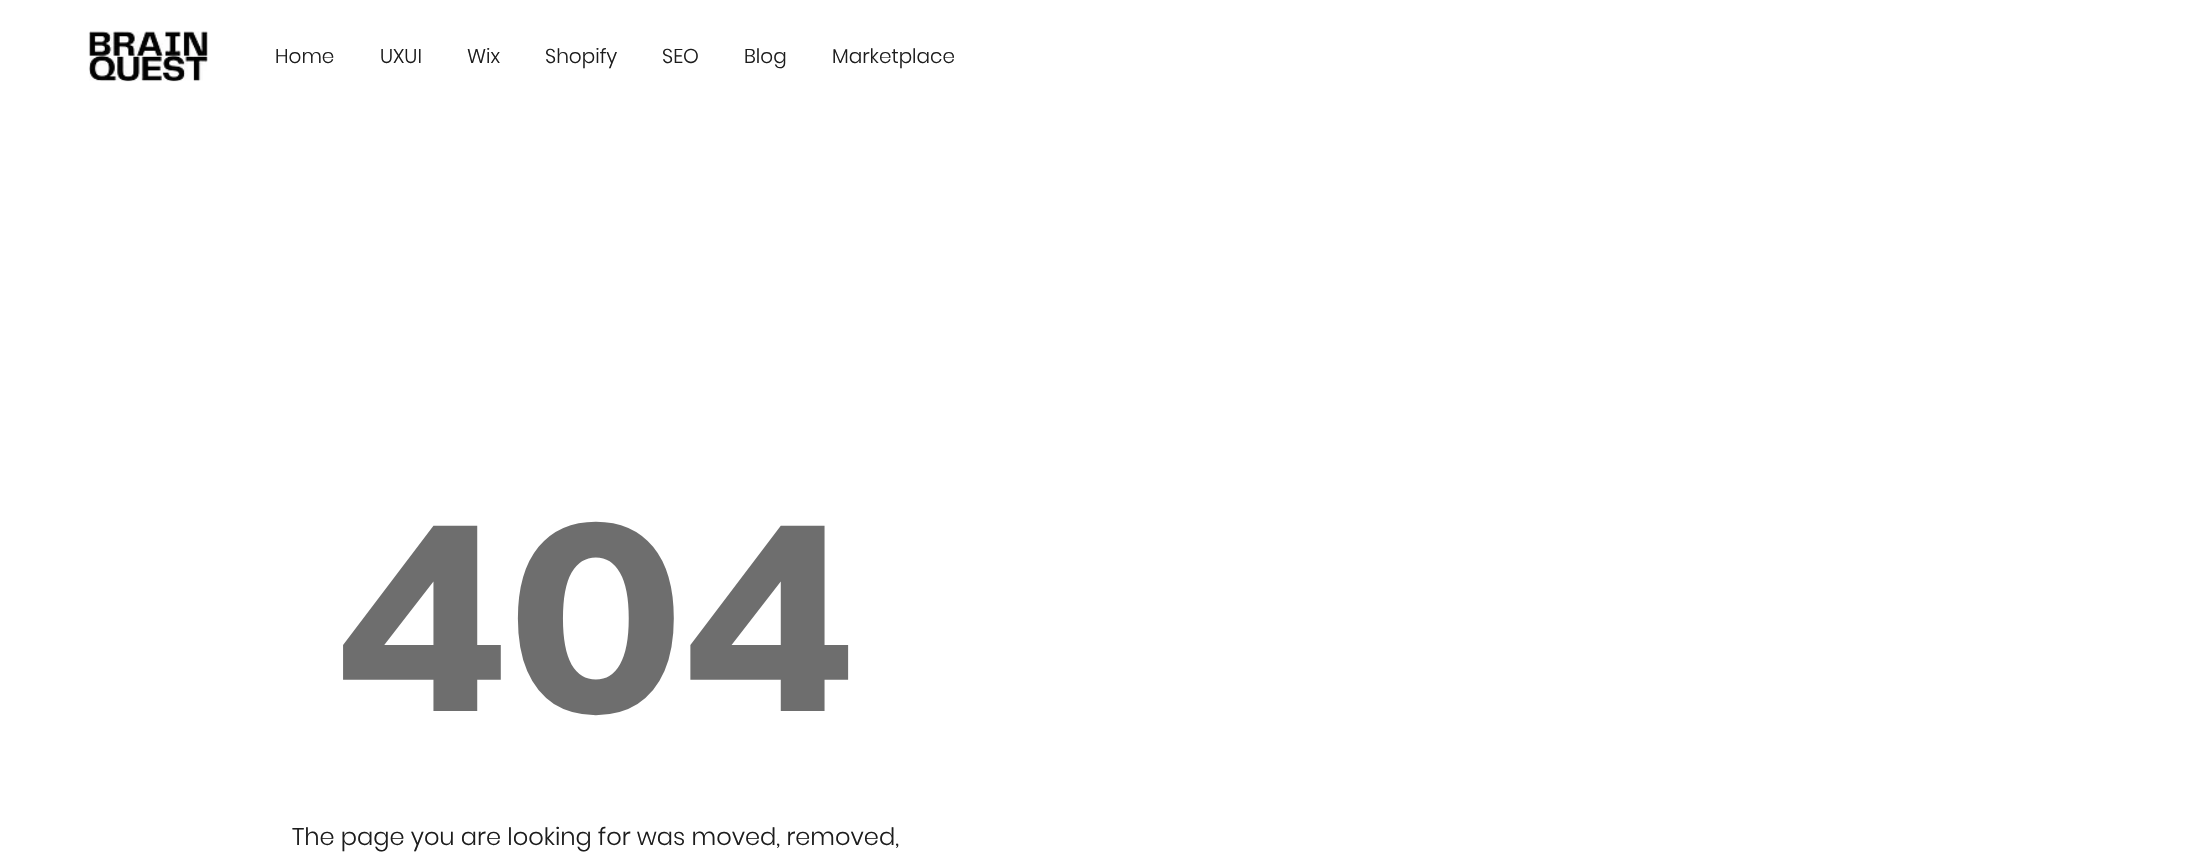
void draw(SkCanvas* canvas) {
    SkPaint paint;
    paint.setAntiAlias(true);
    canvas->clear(0xFFFFFFFF);
    canvas->drawImageRect(SkImages::DeferredFromEncodedData(SkData::MakeFromFileName("img1.png")), SkRect::MakeXYWH(88, 31, 120, 51), SkSamplingOptions());
    SkFont font1(fontMgr->matchFamilyStyle("Poppins", SkFontStyle(300, SkFontStyle::kNormal_Width, SkFontStyle::kUpright_Slant)), 20);
    font1.setSubpixel(true);
    paint.setColor(0xFF1D1D1D);
    canvas->drawString("Home", 275, 63, font1, paint);
    canvas->drawString("UXUI", 380, 63, font1, paint);
    canvas->drawString("Wix", 467, 63, font1, paint);
    canvas->drawString("Shopify", 545, 63, font1, paint);
    canvas->drawString("SEO", 662, 63, font1, paint);
    canvas->drawString("Blog", 744, 63, font1, paint);
    canvas->drawString("Marketplace", 832, 63, font1, paint);
    SkFont font2(fontMgr->matchFamilyStyle("Wix Madefor Display", SkFontStyle(800, SkFontStyle::kNormal_Width, SkFontStyle::kUpright_Slant)), 259);
    font2.setSubpixel(true);
    paint.setColor(0xFF6E6E6E);
    canvas->drawString("404", 334, 711, font2, paint);
    SkFont font3(fontMgr->matchFamilyStyle("Poppins", SkFontStyle(300, SkFontStyle::kNormal_Width, SkFontStyle::kUpright_Slant)), 24.1f);
    font3.setSubpixel(true);
    paint.setColor(0xFF1D1D1D);
    canvas->drawString("The page you are looking for was moved, removed,", 292, 845, font3, paint);
}
